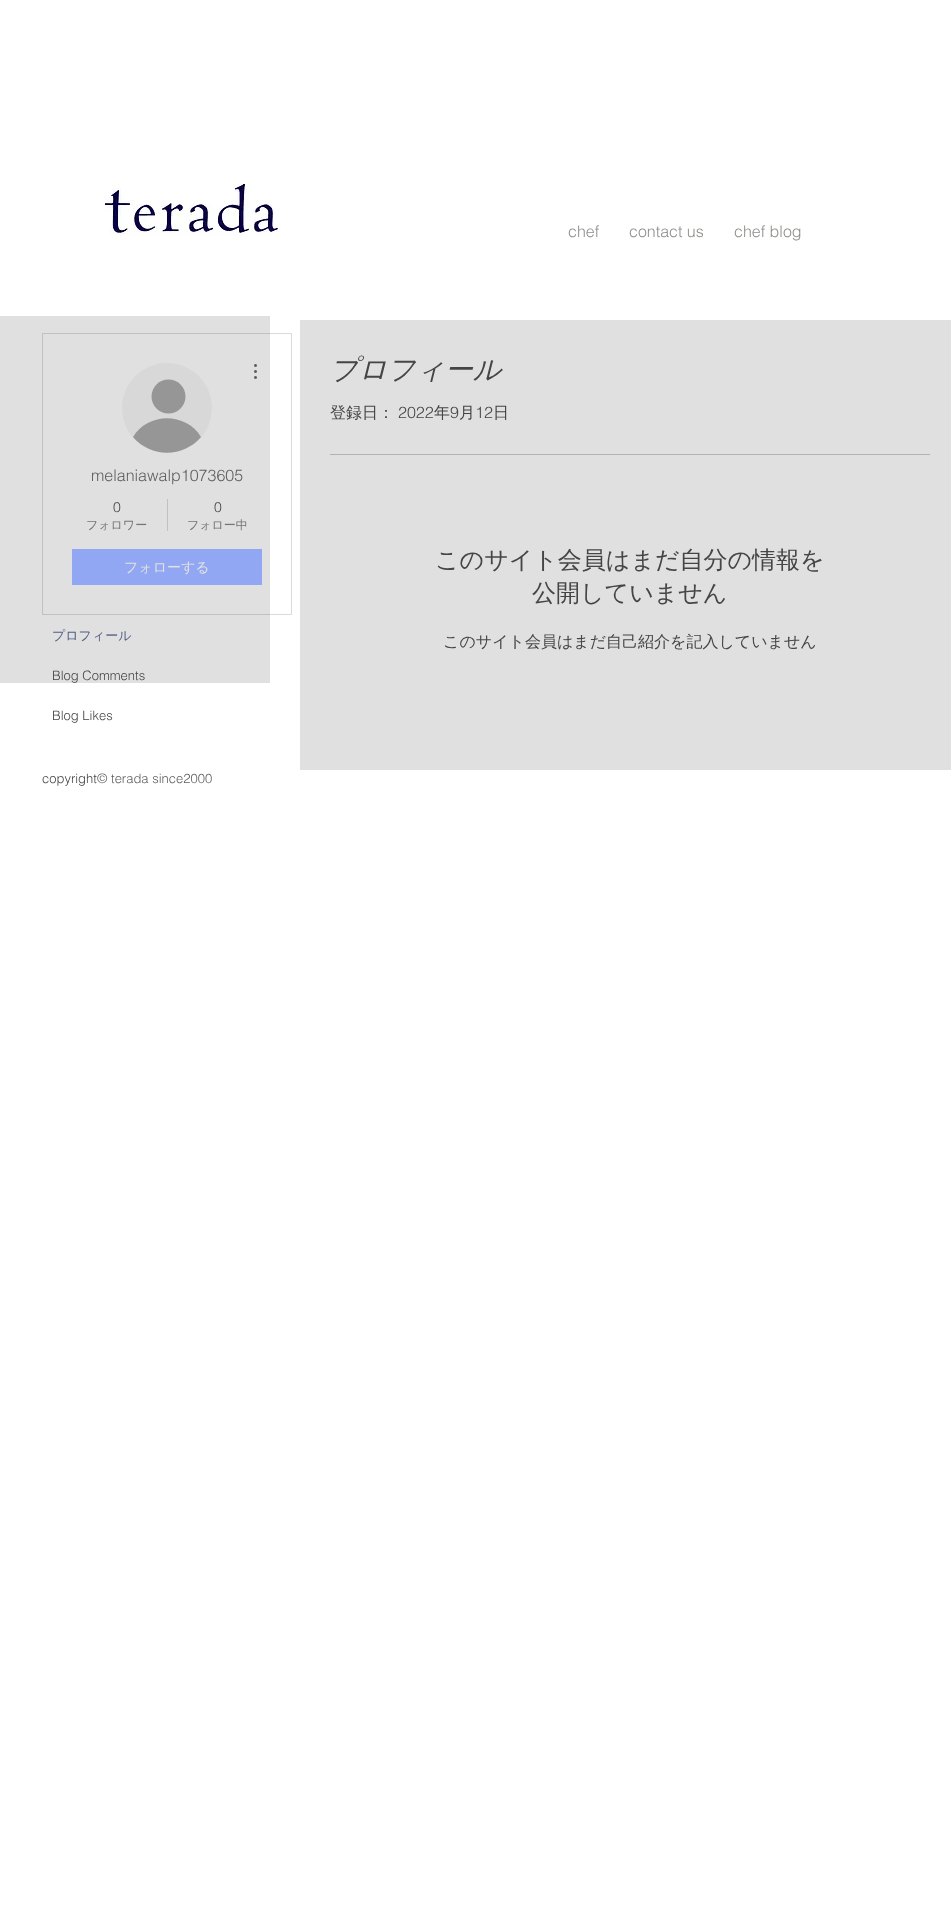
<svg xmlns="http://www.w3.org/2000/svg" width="951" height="1906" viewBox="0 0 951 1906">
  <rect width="100%" height="100%" fill="#fff"/>
  <image x="105" y="183" width="176" height="53" href="img/1.png"/>
  <path d="M0 316h270v367H0z" fill="#e0e0e0"/>
  <path d="M42.5 333.5h249v281H42.5z" fill="none" stroke="#45454533"/>
  <circle cx="167" cy="408" r="45" fill="#d8d8d8"/>
  <circle cx="168.5" cy="396.5" r="17" fill="#969696"/>
  <path d="M201 437C183 458 151 458 133 437C148 412 186 412 201 437Z" fill="#969696"/>
  <image x="254" y="364" width="3" height="15" href="img/2.png"/>
  <path d="M167 499h1v32H167z" fill="#c1c1c1"/>
  <path d="M72 549h190v36H72z" fill="#92a7f3"/>
  <path d="M300 320h651v450H300z" fill="#e0e0e0"/>
  <path d="M330 454h600v1H330z" fill="#b2b2b2"/>
  <g font-family="helvetica" font-size="16" font-weight="300" fill="#8e8e8b">
    <text x="568" y="237">chef</text>
    <text x="629" y="237">contact us</text>
    <text x="734" y="237">chef blog</text>
  </g>
  <text x="91" y="481" font-family="helvetica" font-size="16" font-weight="300" fill="#5f5e5d">melaniawalp1073605</text>
  <text x="113" y="512" font-family="helvetica" font-size="14" font-weight="300" fill="#454545">0</text>
  <text x="86" y="529" font-family="WenQuanYi Zen Hei" font-size="12" font-weight="500" fill="#747474">フォロワー</text>
  <text x="214" y="512" font-family="helvetica" font-size="14" font-weight="300" fill="#454545">0</text>
  <text x="187" y="529" font-family="WenQuanYi Zen Hei" font-size="12" font-weight="500" fill="#747474">フォロー中</text>
  <text x="124" y="572" font-family="WenQuanYi Zen Hei" font-size="14" font-weight="500" fill="#e0e0e0">フォローする</text>
  <text x="52" y="640" font-family="WenQuanYi Zen Hei" font-size="13" font-weight="500" fill="#515d87">プロフィール</text>
  <g font-family="helvetica" font-size="13" font-weight="300" fill="#454545">
    <text x="52" y="680">Blog Comments</text>
    <text x="52" y="720">Blog Likes</text>
  </g>
  <text x="330" y="379" font-family="WenQuanYi Zen Hei" font-size="28" font-weight="500" font-style="italic" fill="#454545">プロフィール</text>
  <text x="330" y="418" font-family="WenQuanYi Zen Hei" font-size="16" font-weight="500" fill="#454545">登録日：</text>
  <text x="398" y="418" font-family="helvetica" font-size="16" font-weight="300" fill="#454545">2022</text>
  <text x="434" y="418" font-family="WenQuanYi Zen Hei" font-size="16" font-weight="500" fill="#454545">年</text>
  <text x="450" y="418" font-family="helvetica" font-size="16" font-weight="300" fill="#454545">9</text>
  <text x="459" y="418" font-family="WenQuanYi Zen Hei" font-size="16" font-weight="500" fill="#454545">月</text>
  <text x="475" y="418" font-family="helvetica" font-size="16" font-weight="300" fill="#454545">12</text>
  <text x="493" y="418" font-family="WenQuanYi Zen Hei" font-size="16" font-weight="500" fill="#454545">日</text>
  <g font-family="WenQuanYi Zen Hei" font-size="24" font-weight="500" fill="#454545">
    <text x="435" y="568">このサイト会員はまだ自分の情報を</text>
    <text x="532" y="601">公開していません</text>
  </g>
  <text x="443" y="647" font-family="WenQuanYi Zen Hei" font-size="16" font-weight="500" fill="#454545">このサイト会員はまだ自己紹介を記入していません</text>
  <text x="42" y="783" font-family="helvetica" font-size="13" font-weight="300" fill="#454545">copyright</text>
  <text x="97" y="783" font-family="helvetica" font-size="13" font-weight="300" fill="#5f5e5d">© terada since2000</text>
</svg>
